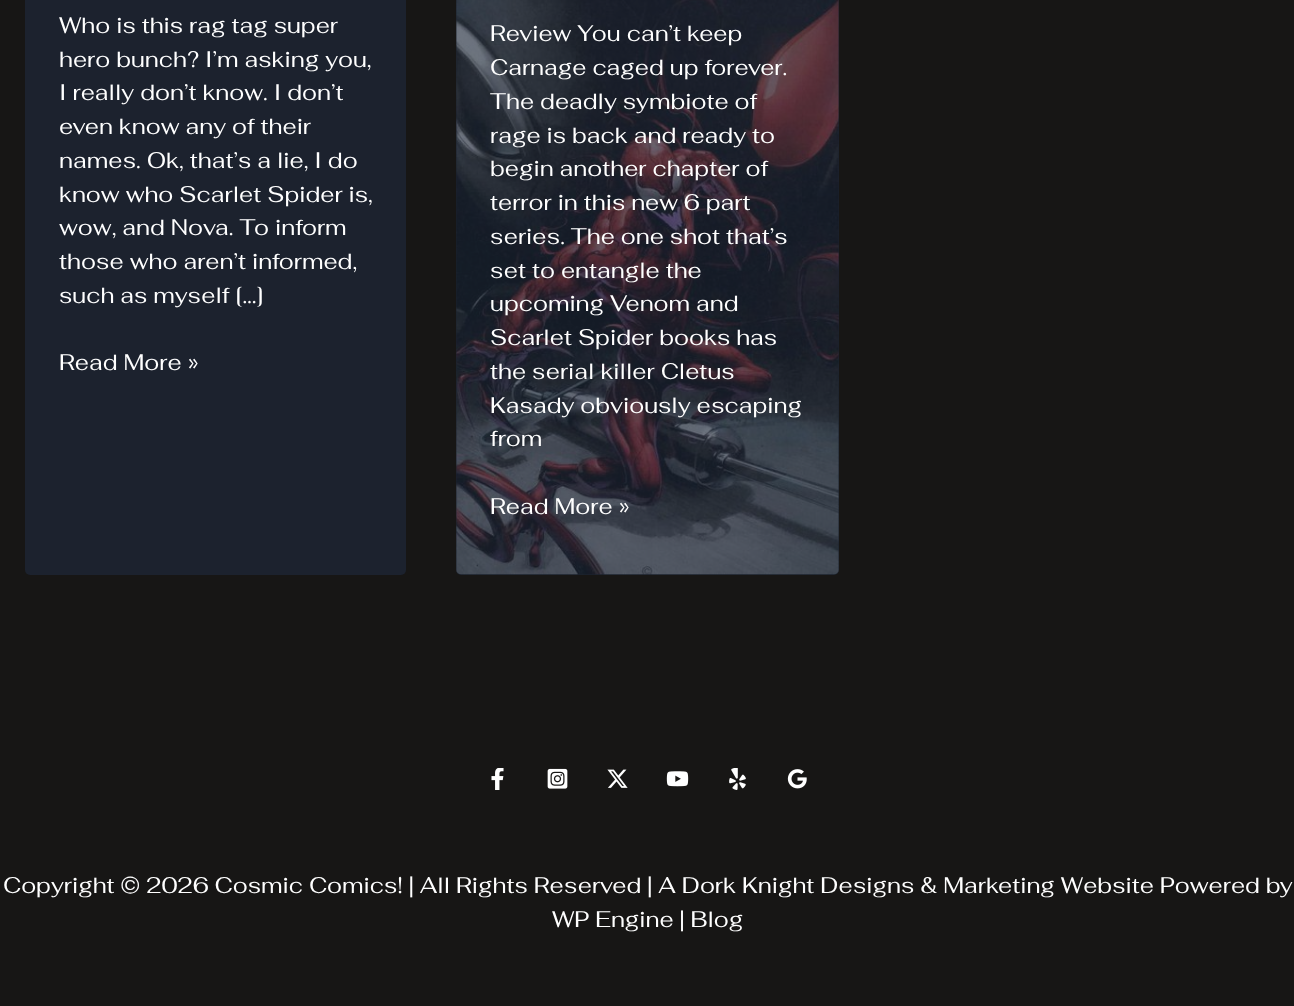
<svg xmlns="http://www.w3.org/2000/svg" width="1294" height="1006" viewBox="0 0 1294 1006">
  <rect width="100%" height="100%" fill="#171615"/>
  <rect x="25" y="-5" width="381" height="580" rx="5" fill="#1c222e"/>
  <image x="456" y="0" width="383" height="575" href="img/1.png"/>
  <rect x="456" y="-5" width="383" height="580" rx="5" fill="#1e293ba6"/>
  <image x="491" y="768" width="13" height="22" href="img/2.png"/>
  <image x="547" y="768" width="21" height="21" href="img/3.png"/>
  <image x="607" y="769" width="21" height="19" href="img/4.png"/>
  <image x="666" y="771" width="23" height="16" href="img/5.png"/>
  <image x="729" y="768" width="17" height="22" href="img/6.png"/>
  <image x="787" y="769" width="20" height="20" href="img/7.png"/>
  <g font-family="Fahkwang" font-size="22.5" fill="#fff">
    <text x="59" y="33">Who is this rag tag super</text>
    <text x="59" y="67">hero bunch? I’m asking you,</text>
    <text x="59" y="100">I really don’t know. I don’t</text>
    <text x="59" y="134">even know any of their</text>
    <text x="59" y="168">names. Ok, that’s a lie, I do</text>
    <text x="59" y="202">know who Scarlet Spider is,</text>
    <text x="59" y="235">wow, and Nova. To inform</text>
    <text x="59" y="269">those who aren’t informed,</text>
    <text x="59" y="303">such as myself […]</text>
    <text x="59" y="370">Read More »</text>
    <text x="490" y="41">Review You can’t keep</text>
    <text x="490" y="75">Carnage caged up forever.</text>
    <text x="490" y="109">The deadly symbiote of</text>
    <text x="490" y="143">rage is back and ready to</text>
    <text x="490" y="176">begin another chapter of</text>
    <text x="490" y="210">terror in this new 6 part</text>
    <text x="490" y="244">series. The one shot that’s</text>
    <text x="490" y="278">set to entangle the</text>
    <text x="490" y="311">upcoming Venom and</text>
    <text x="490" y="345">Scarlet Spider books has</text>
    <text x="490" y="379">the serial killer Cletus</text>
    <text x="490" y="413">Kasady obviously escaping</text>
    <text x="490" y="446">from</text>
    <text x="490" y="514">Read More »</text>
    <text x="3" y="893">Copyright © 2026 Cosmic Comics! | All Rights Reserved | A Dork Knight Designs &amp; Marketing Website Powered by</text>
    <text x="552" y="927">WP Engine | Blog</text>
  </g>
</svg>
